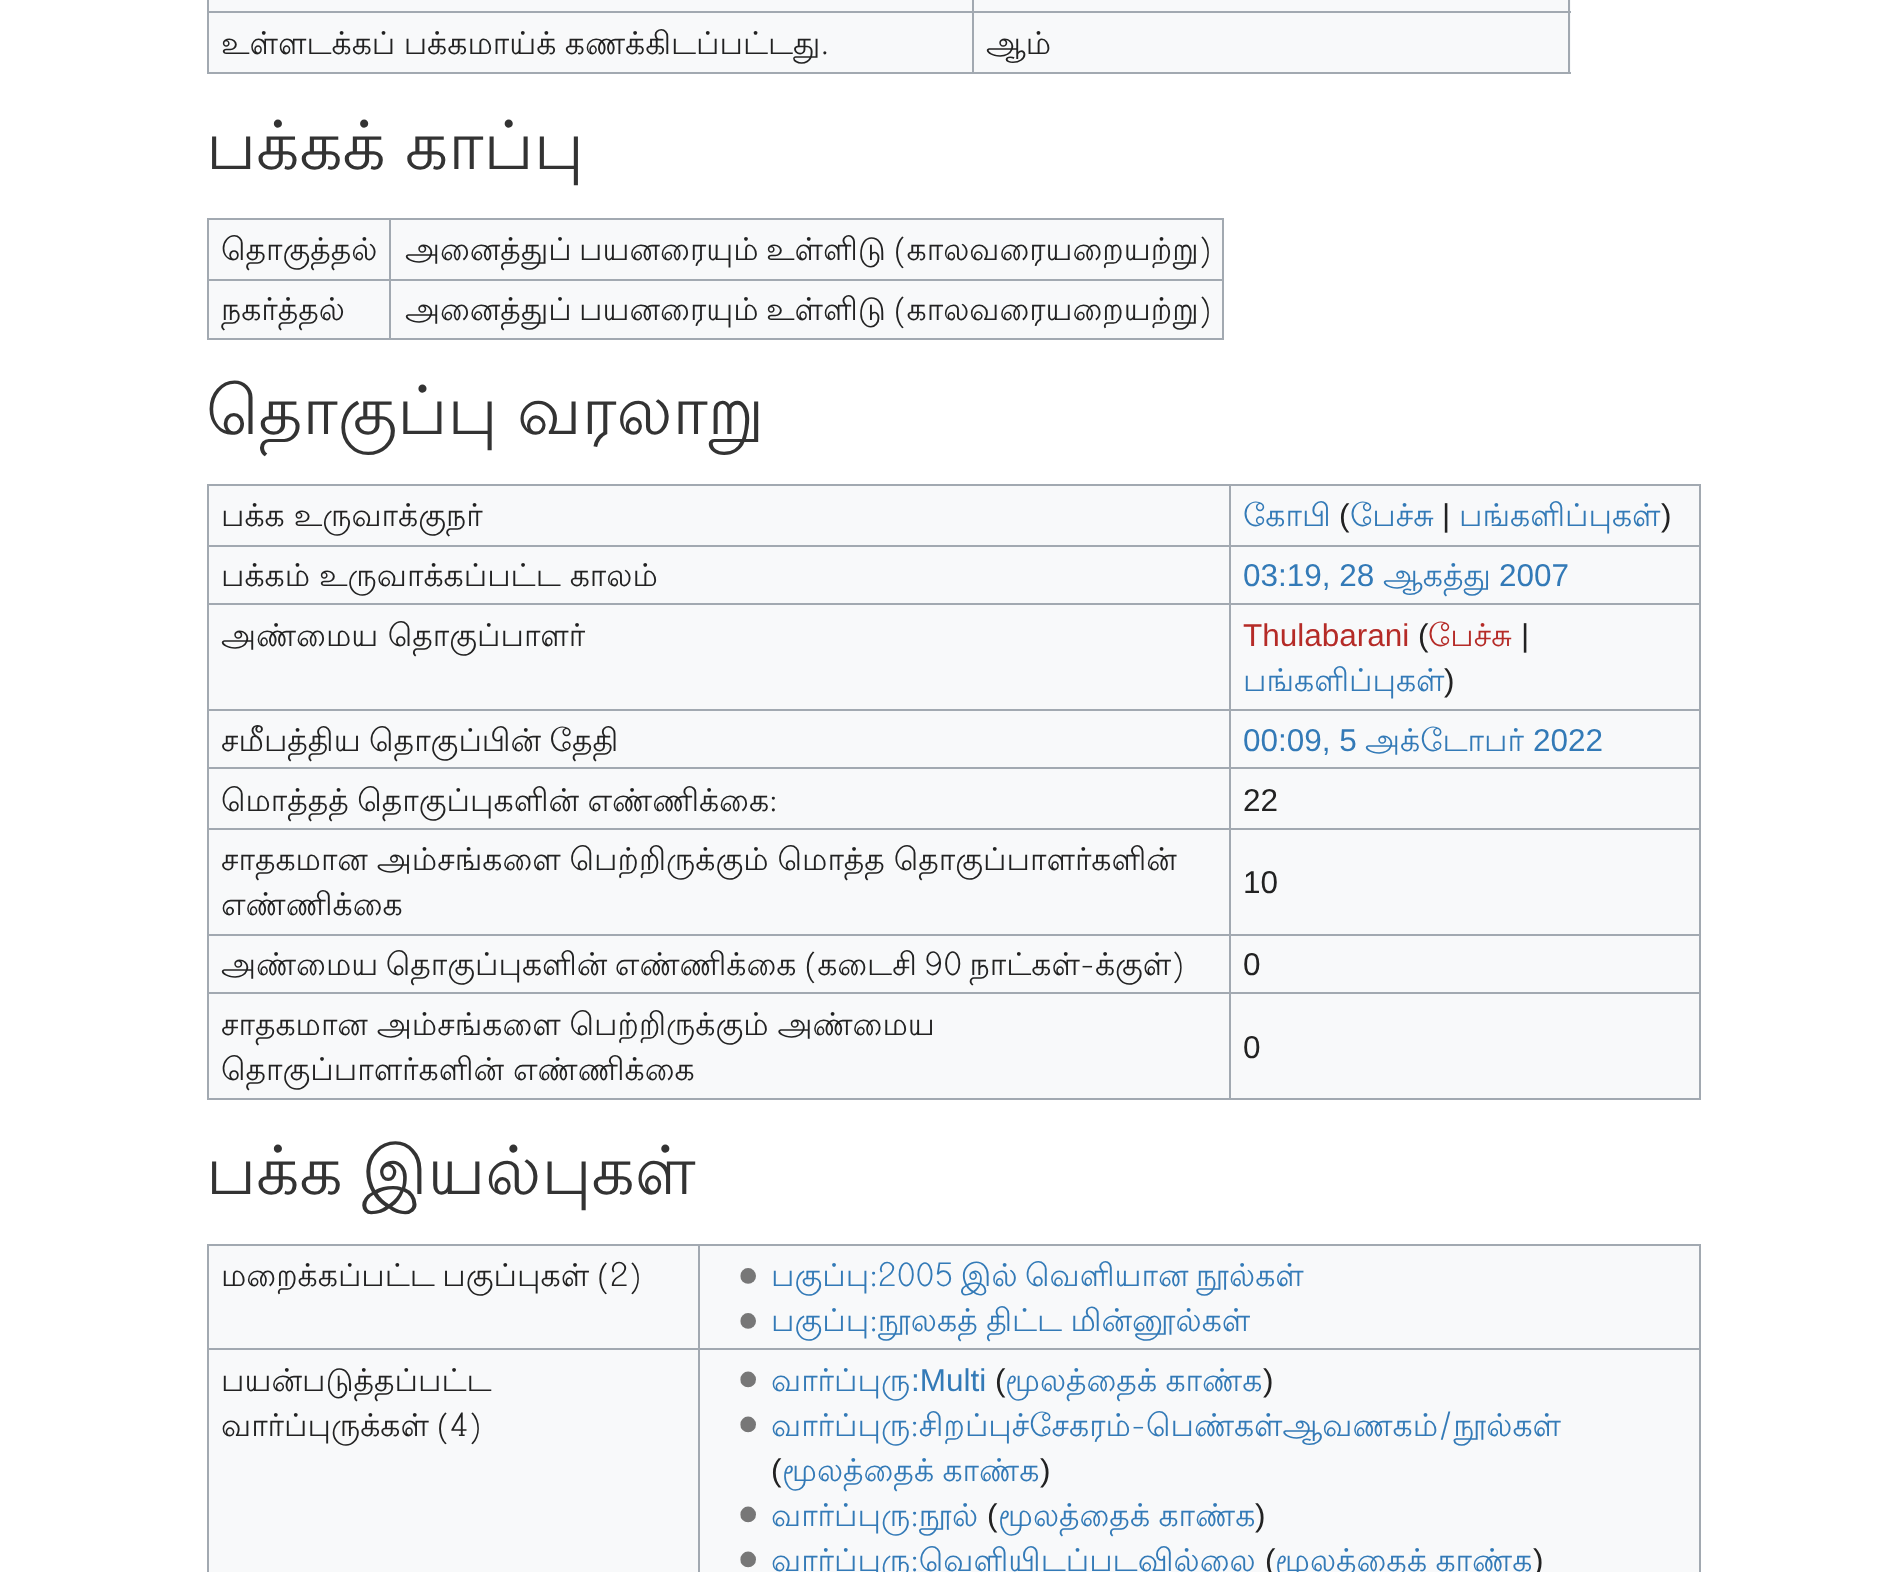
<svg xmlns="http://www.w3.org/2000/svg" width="1904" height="1572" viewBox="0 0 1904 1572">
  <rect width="100%" height="100%" fill="#fff"/>
  <path d="M209 0h1362v72H209z" fill="#f8f9fa"/>
  <path d="M1568 0h2v74H1568z" fill="#a2a9b1"/>
  <path d="M207 72h1364v2H207z" fill="#a2a9b1"/>
  <path d="M207 0h2v74H207z" fill="#a2a9b1"/>
  <path d="M972 11h599v2H972z" fill="#a2a9b1"/>
  <path d="M972 11h2v63H972z" fill="#a2a9b1"/>
  <path d="M207 11h767v2H207z" fill="#a2a9b1"/>
  <path d="M972 0h2v14H972z" fill="#a2a9b1"/>
  <path d="M209 220h1013v118H209z" fill="#f8f9fa"/>
  <path d="M207 218h1017v2H207z" fill="#a2a9b1"/>
  <path d="M1222 218h2v122H1222z" fill="#a2a9b1"/>
  <path d="M207 338h1017v2H207z" fill="#a2a9b1"/>
  <path d="M207 218h2v122H207z" fill="#a2a9b1"/>
  <path d="M389 279h835v2H389z" fill="#a2a9b1"/>
  <path d="M389 279h2v61H389z" fill="#a2a9b1"/>
  <path d="M207 279h185v2H207z" fill="#a2a9b1"/>
  <path d="M389 218h2v63H389z" fill="#a2a9b1"/>
  <path d="M209 486h1490v612H209z" fill="#f8f9fa"/>
  <path d="M207 484h1494v2H207z" fill="#a2a9b1"/>
  <path d="M1699 484h2v616H1699z" fill="#a2a9b1"/>
  <path d="M207 1098h1494v2H207z" fill="#a2a9b1"/>
  <path d="M207 484h2v616H207z" fill="#a2a9b1"/>
  <path d="M1229 545h472v2H1229z" fill="#a2a9b1"/>
  <path d="M1229 603h472v2H1229z" fill="#a2a9b1"/>
  <path d="M1229 709h472v2H1229z" fill="#a2a9b1"/>
  <path d="M1229 767h472v2H1229z" fill="#a2a9b1"/>
  <path d="M1229 828h472v2H1229z" fill="#a2a9b1"/>
  <path d="M1229 934h472v2H1229z" fill="#a2a9b1"/>
  <path d="M1229 992h472v2H1229z" fill="#a2a9b1"/>
  <path d="M1229 992h2v108H1229z" fill="#a2a9b1"/>
  <path d="M207 992h1024v2H207z" fill="#a2a9b1"/>
  <path d="M1229 934h2v61H1229z" fill="#a2a9b1"/>
  <path d="M207 934h1024v2H207z" fill="#a2a9b1"/>
  <path d="M1229 828h2v108H1229z" fill="#a2a9b1"/>
  <path d="M207 828h1024v2H207z" fill="#a2a9b1"/>
  <path d="M1229 767h2v63H1229z" fill="#a2a9b1"/>
  <path d="M207 767h1024v2H207z" fill="#a2a9b1"/>
  <path d="M1229 709h2v61H1229z" fill="#a2a9b1"/>
  <path d="M207 709h1024v2H207z" fill="#a2a9b1"/>
  <path d="M1229 603h2v108H1229z" fill="#a2a9b1"/>
  <path d="M207 603h1024v2H207z" fill="#a2a9b1"/>
  <path d="M1229 545h2v60H1229z" fill="#a2a9b1"/>
  <path d="M207 545h1024v2H207z" fill="#a2a9b1"/>
  <path d="M1229 484h2v63H1229z" fill="#a2a9b1"/>
  <path d="M209 1246h1490v326H209z" fill="#f8f9fa"/>
  <path d="M207 1244h1494v2H207z" fill="#a2a9b1"/>
  <path d="M1699 1244h2v328H1699z" fill="#a2a9b1"/>
  <path d="M207 1244h2v328H207z" fill="#a2a9b1"/>
  <path d="M698 1348h1003v2H698z" fill="#a2a9b1"/>
  <path d="M698 1348h2v224H698z" fill="#a2a9b1"/>
  <path d="M207 1348h493v2H207z" fill="#a2a9b1"/>
  <path d="M698 1244h2v106H698z" fill="#a2a9b1"/>
  <image x="740" y="1268" width="16" height="16" href="img/1.png"/>
  <image x="740" y="1313" width="16" height="16" href="img/1.png"/>
  <image x="740" y="1371" width="16" height="17" href="img/2.png"/>
  <image x="740" y="1416" width="16" height="17" href="img/2.png"/>
  <image x="740" y="1506" width="16" height="17" href="img/2.png"/>
  <image x="740" y="1551" width="16" height="17" href="img/2.png"/>
  <g font-family="Lohit Tamil" font-size="31.5" fill="#222">
    <text x="221" y="54" word-spacing="-1">உள்ளடக்கப் பக்கமாய்க் கணக்கிடப்பட்டது.</text>
    <text x="986" y="54">ஆம்</text>
  </g>
  <text x="206" y="169" word-spacing="-1" font-family="Lohit Tamil" font-size="67.5" fill="#333">பக்கக் காப்பு</text>
  <g font-family="Lohit Tamil" font-size="31.5" fill="#222">
    <text x="221" y="260">தொகுத்தல்</text>
    <text x="405" y="260" word-spacing="-2">அனைத்துப் பயனரையும் உள்ளிடு (காலவரையறையற்று)</text>
    <text x="221" y="320">நகர்த்தல்</text>
    <text x="405" y="320" word-spacing="-2">அனைத்துப் பயனரையும் உள்ளிடு (காலவரையறையற்று)</text>
  </g>
  <text x="206" y="434" word-spacing="-1" font-family="Lohit Tamil" font-size="67.5" fill="#333">தொகுப்பு வரலாறு</text>
  <text x="221" y="526" word-spacing="-0.5" font-family="Lohit Tamil" font-size="31.5" fill="#222">பக்க உருவாக்குநர்</text>
  <text x="1243" y="526" font-family="Lohit Tamil" font-size="31.5" fill="#337ab7">கோபி</text>
  <text x="1339" y="526" font-family="Liberation Sans" font-size="31.5" fill="#222">(</text>
  <text x="1350" y="526" font-family="Lohit Tamil" font-size="31.5" fill="#337ab7">பேச்சு</text>
  <text x="1442" y="526" font-family="Liberation Sans" font-size="31.5" fill="#222">|</text>
  <text x="1459" y="526" font-family="Lohit Tamil" font-size="31.5" fill="#337ab7">பங்களிப்புகள்</text>
  <text x="1661" y="526" font-family="Liberation Sans" font-size="31.5" fill="#222">)</text>
  <text x="221" y="586" word-spacing="-0.5" font-family="Lohit Tamil" font-size="31.5" fill="#222">பக்கம் உருவாக்கப்பட்ட காலம்</text>
  <text x="1243" y="586" font-family="Liberation Sans" font-size="31.5" fill="#337ab7">03:19, 28</text>
  <text x="1383" y="586" font-family="Lohit Tamil" font-size="31.5" fill="#337ab7">ஆகத்து</text>
  <text x="1499" y="586" font-family="Liberation Sans" font-size="31.5" fill="#337ab7">2007</text>
  <text x="221" y="646" font-family="Lohit Tamil" font-size="31.5" fill="#222">அண்மைய தொகுப்பாளர்</text>
  <text x="1243" y="646" font-family="Liberation Sans" font-size="31.5" fill="#b52b27">Thulabarani</text>
  <text x="1418" y="646" font-family="Liberation Sans" font-size="31.5" fill="#222">(</text>
  <text x="1428" y="646" font-family="Lohit Tamil" font-size="31.5" fill="#b52b27">பேச்சு</text>
  <text x="1521" y="646" font-family="Liberation Sans" font-size="31.5" fill="#222">|</text>
  <text x="1243" y="691" font-family="Lohit Tamil" font-size="31.5" fill="#337ab7">பங்களிப்புகள்</text>
  <text x="1444" y="691" font-family="Liberation Sans" font-size="31.5" fill="#222">)</text>
  <text x="221" y="751" word-spacing="-1" font-family="Lohit Tamil" font-size="31.5" fill="#222">சமீபத்திய தொகுப்பின் தேதி</text>
  <text x="1243" y="751" font-family="Liberation Sans" font-size="31.5" fill="#337ab7">00:09, 5</text>
  <text x="1365" y="751" font-family="Lohit Tamil" font-size="31.5" fill="#337ab7">அக்டோபர்</text>
  <text x="1533" y="751" font-family="Liberation Sans" font-size="31.5" fill="#337ab7">2022</text>
  <text x="221" y="811" word-spacing="-1" font-family="Lohit Tamil" font-size="31.5" fill="#222">மொத்தத் தொகுப்புகளின் எண்ணிக்கை:</text>
  <text x="1243" y="811" font-family="Liberation Sans" font-size="31.5" fill="#222">22</text>
  <g font-family="Lohit Tamil" font-size="31.5" fill="#222">
    <text x="221" y="870" word-spacing="-0.5">சாதகமான அம்சங்களை பெற்றிருக்கும் மொத்த தொகுப்பாளர்களின்</text>
    <text x="221" y="915">எண்ணிக்கை</text>
  </g>
  <text x="1243" y="893" font-family="Liberation Sans" font-size="31.5" fill="#222">10</text>
  <text x="221" y="975" word-spacing="-2" font-family="Lohit Tamil" font-size="31.5" fill="#222">அண்மைய தொகுப்புகளின் எண்ணிக்கை (கடைசி 90 நாட்கள்-க்குள்)</text>
  <text x="1243" y="975" font-family="Liberation Sans" font-size="31.5" fill="#222">0</text>
  <g font-family="Lohit Tamil" font-size="31.5" fill="#222">
    <text x="221" y="1035" word-spacing="-0.5">சாதகமான அம்சங்களை பெற்றிருக்கும் அண்மைய</text>
    <text x="221" y="1080" word-spacing="-0.5">தொகுப்பாளர்களின் எண்ணிக்கை</text>
  </g>
  <text x="1243" y="1058" font-family="Liberation Sans" font-size="31.5" fill="#222">0</text>
  <text x="206" y="1194" word-spacing="-1" font-family="Lohit Tamil" font-size="67.5" fill="#333">பக்க இயல்புகள்</text>
  <text x="221" y="1286" word-spacing="-2" font-family="Lohit Tamil" font-size="31.5" fill="#222">மறைக்கப்பட்ட பகுப்புகள் (2)</text>
  <g font-family="Lohit Tamil" font-size="31.5" fill="#337ab7">
    <text x="771" y="1286" word-spacing="-2">பகுப்பு:2005 இல் வெளியான நூல்கள்</text>
    <text x="771" y="1331" word-spacing="-1">பகுப்பு:நூலகத் திட்ட மின்னூல்கள்</text>
  </g>
  <g font-family="Lohit Tamil" font-size="31.5" fill="#222">
    <text x="221" y="1391">பயன்படுத்தப்பட்ட</text>
    <text x="221" y="1436" word-spacing="-2">வார்ப்புருக்கள் (4)</text>
  </g>
  <text x="771" y="1391" font-family="Lohit Tamil" font-size="31.5" fill="#337ab7">வார்ப்புரு</text>
  <text x="911" y="1391" font-family="Liberation Sans" font-size="31.5" fill="#337ab7">:Multi</text>
  <text x="995" y="1391" font-family="Liberation Sans" font-size="31.5" fill="#222">(</text>
  <text x="1005" y="1391" word-spacing="-1" font-family="Lohit Tamil" font-size="31.5" fill="#337ab7">மூலத்தைக் காண்க</text>
  <text x="1263" y="1391" font-family="Liberation Sans" font-size="31.5" fill="#222">)</text>
  <text x="771" y="1436" font-family="Lohit Tamil" font-size="31.5" fill="#337ab7">வார்ப்புரு:சிறப்புச்சேகரம்-பெண்கள்ஆவணகம்/நூல்கள்</text>
  <text x="771" y="1481" font-family="Liberation Sans" font-size="31.5" fill="#222">(</text>
  <text x="782" y="1481" word-spacing="-1" font-family="Lohit Tamil" font-size="31.5" fill="#337ab7">மூலத்தைக் காண்க</text>
  <text x="1040" y="1481" font-family="Liberation Sans" font-size="31.5" fill="#222">)</text>
  <text x="771" y="1526" font-family="Lohit Tamil" font-size="31.5" fill="#337ab7">வார்ப்புரு:நூல்</text>
  <text x="987" y="1526" font-family="Liberation Sans" font-size="31.5" fill="#222">(</text>
  <text x="998" y="1526" word-spacing="-1" font-family="Lohit Tamil" font-size="31.5" fill="#337ab7">மூலத்தைக் காண்க</text>
  <text x="1255" y="1526" font-family="Liberation Sans" font-size="31.5" fill="#222">)</text>
  <text x="771" y="1571" font-family="Lohit Tamil" font-size="31.5" fill="#337ab7">வார்ப்புரு:வெளியிடப்படவில்லை</text>
  <text x="1265" y="1571" font-family="Liberation Sans" font-size="31.5" fill="#222">(</text>
  <text x="1275" y="1571" word-spacing="-1" font-family="Lohit Tamil" font-size="31.5" fill="#337ab7">மூலத்தைக் காண்க</text>
  <text x="1533" y="1571" font-family="Liberation Sans" font-size="31.5" fill="#222">)</text>
</svg>
